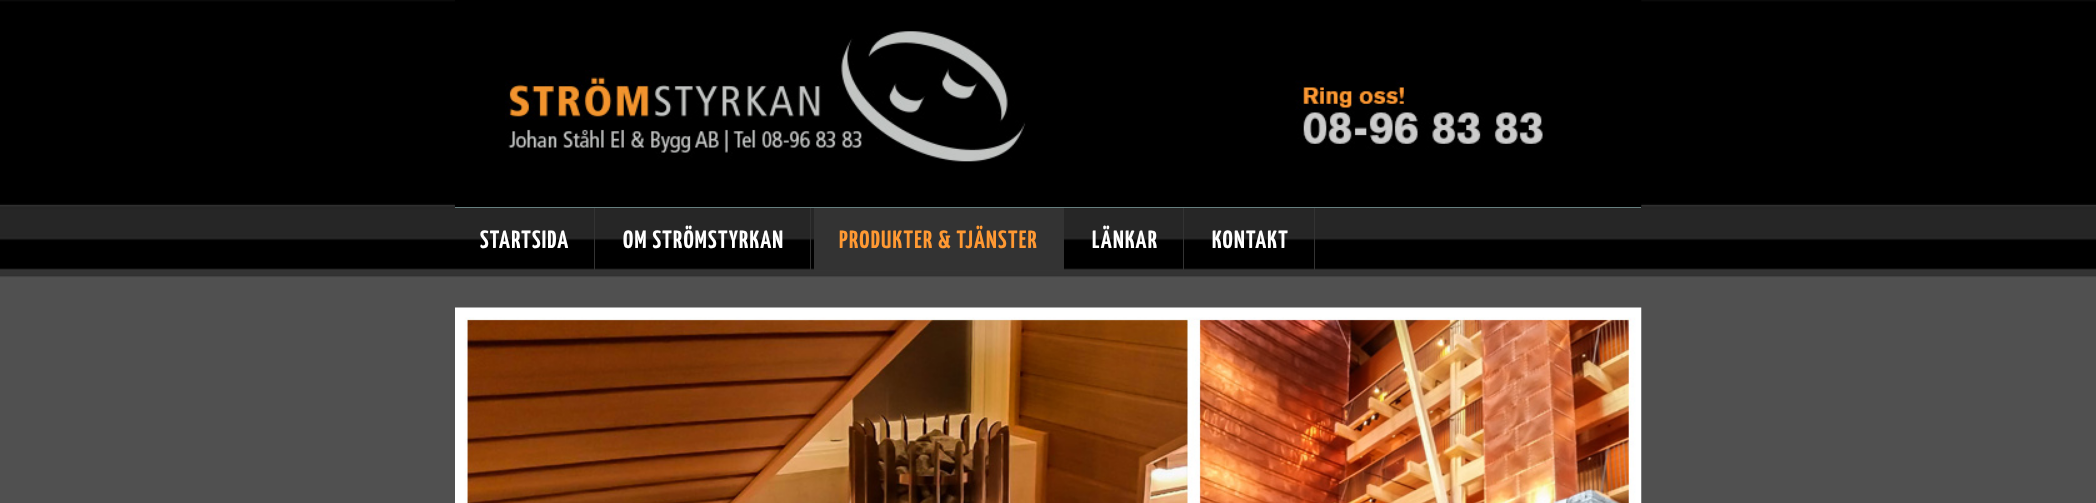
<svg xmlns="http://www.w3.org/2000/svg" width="2096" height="503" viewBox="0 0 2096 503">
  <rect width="100%" height="100%" fill="#fff"/>
  <image x="0" y="0" width="2096" height="503" href="img/1.png"/>
  <path d="M455 207h1186v1H455z" fill="#cff"/>
  <image x="455" y="0" width="1187" height="208" href="img/2.png"/>
  <path d="M594 208h1v67H594z" fill="#333"/>
  <path d="M810 208h1v67H810z" fill="#333"/>
  <path d="M814 208h250v62H814z" fill="#333"/>
  <path d="M1183 208h1v67H1183z" fill="#333"/>
  <path d="M1314 208h1v67H1314z" fill="#333"/>
  <image x="455" y="307" width="1187" height="196" href="img/3.png"/>
  <g font-family="Yanone Kaffeesatz" font-size="25" font-weight="bold" letter-spacing="1.25" fill="#fff">
    <text x="480" y="248">STARTSIDA</text>
    <text x="623" y="248">OM STRÖMSTYRKAN</text>
  </g>
  <text x="839" y="248" font-family="Yanone Kaffeesatz" font-size="25" font-weight="bold" letter-spacing="1.25" fill="#f93">PRODUKTER &amp; TJÄNSTER</text>
  <g font-family="Yanone Kaffeesatz" font-size="25" font-weight="bold" letter-spacing="1.25" fill="#fff">
    <text x="1092" y="248">LÄNKAR</text>
    <text x="1212" y="248">KONTAKT</text>
  </g>
</svg>
